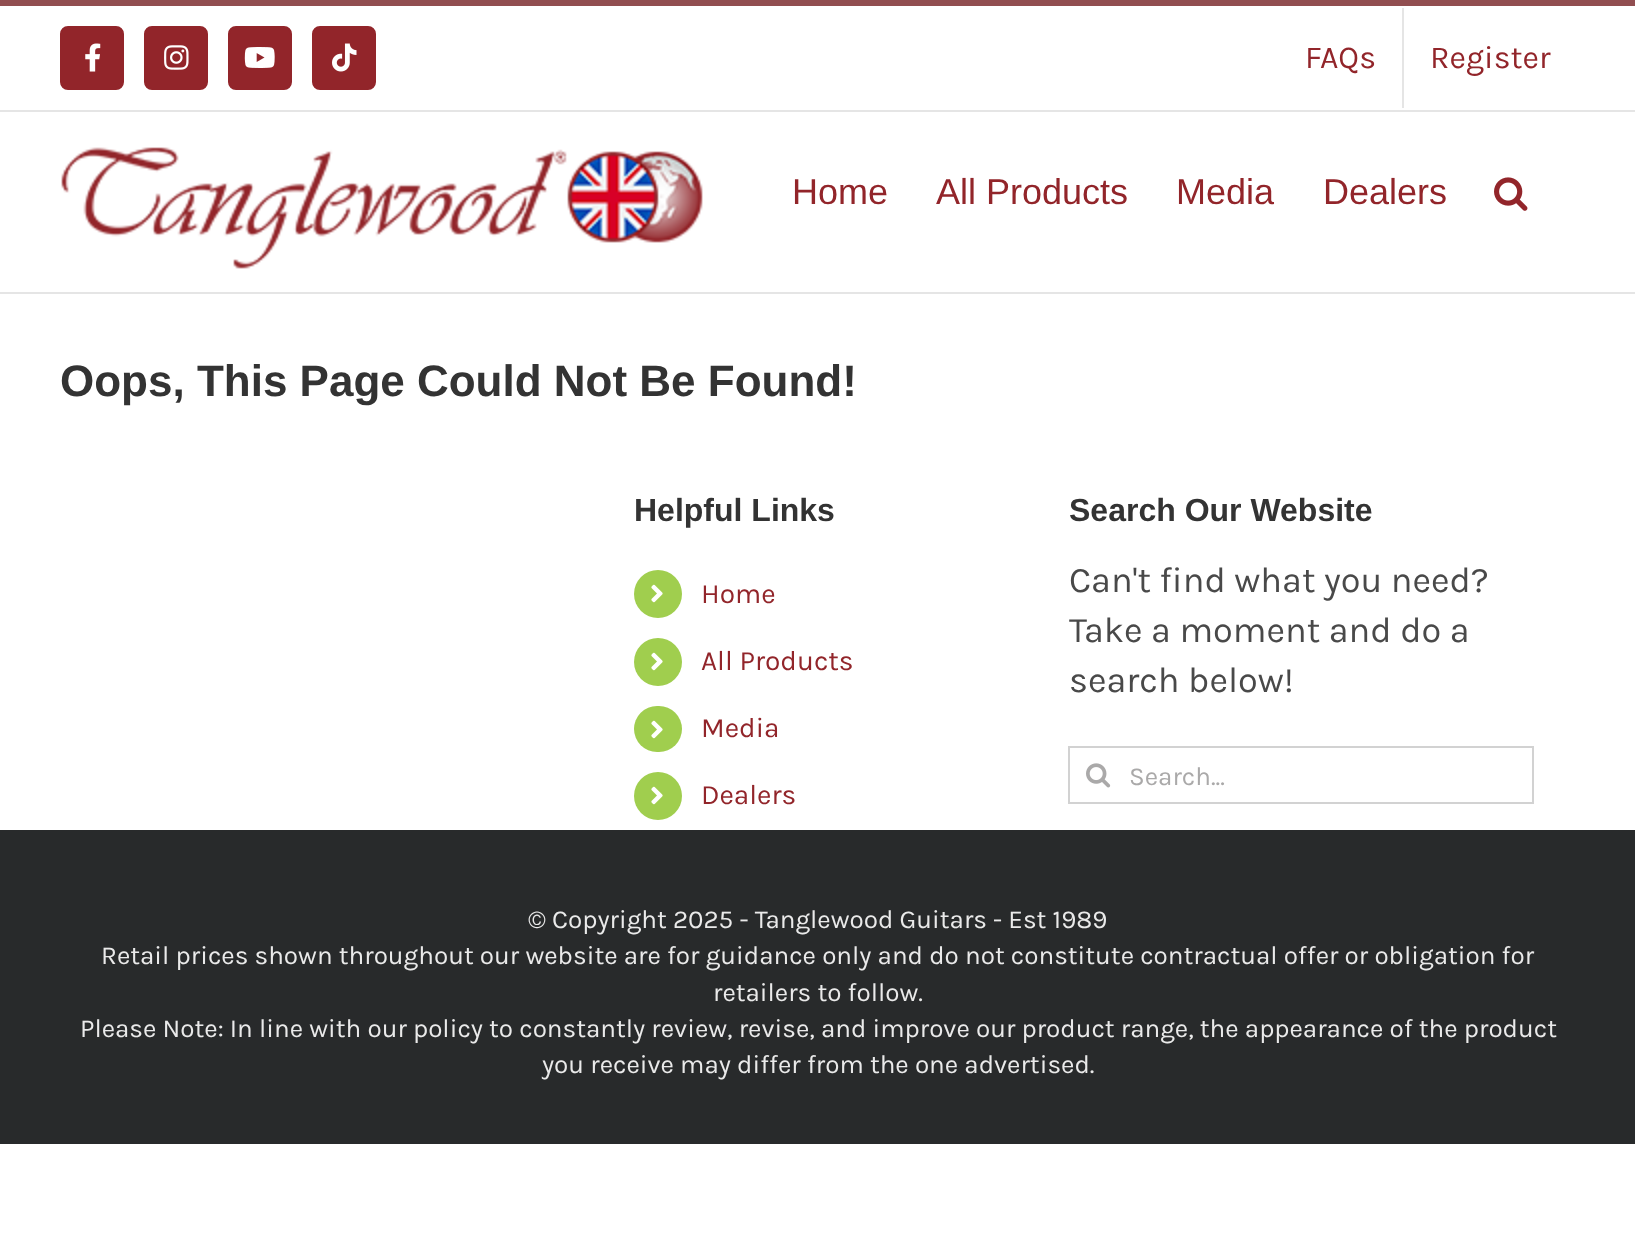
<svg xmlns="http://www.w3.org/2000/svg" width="1635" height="1260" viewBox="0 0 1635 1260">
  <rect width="100%" height="100%" fill="#fff"/>
  <path d="M0 0h1635v6H0z" fill="#914e50"/>
  <path d="M0 110h1635v2H0z" fill="#e5e5e5"/>
  <rect x="61" y="27" width="62" height="62" rx="7" fill="#92252a" stroke="#92252a" stroke-width="2"/>
  <image x="85" y="43" width="16" height="29" href="img/1.png"/>
  <rect x="145" y="27" width="62" height="62" rx="7" fill="#92252a" stroke="#92252a" stroke-width="2"/>
  <image x="164" y="45" width="25" height="25" href="img/2.png"/>
  <rect x="229" y="27" width="62" height="62" rx="7" fill="#92252a" stroke="#92252a" stroke-width="2"/>
  <image x="244" y="47" width="31" height="21" href="img/3.png"/>
  <rect x="313" y="27" width="62" height="62" rx="7" fill="#92252a" stroke="#92252a" stroke-width="2"/>
  <image x="332" y="43" width="25" height="29" href="img/4.png"/>
  <path d="M1402 8h2v100H1402z" fill="#e5e5e5"/>
  <path d="M0 292h1635v2H0z" fill="#e5e5e5"/>
  <image x="61" y="147" width="642" height="122" href="img/5.png"/>
  <image x="1494" y="177" width="34" height="34" href="img/6.png"/>
  <circle cx="658" cy="594" r="24" fill="#a0ce4e"/>
  <image x="651" y="584" width="12" height="19" href="img/7.png"/>
  <circle cx="658" cy="662" r="24" fill="#a0ce4e"/>
  <image x="651" y="652" width="12" height="19" href="img/7.png"/>
  <rect x="634" y="706" width="48" height="46" rx="23" fill="#a0ce4e"/>
  <image x="651" y="720" width="12" height="19" href="img/7.png"/>
  <circle cx="658" cy="796" r="24" fill="#a0ce4e"/>
  <image x="651" y="786" width="12" height="19" href="img/7.png"/>
  <path d="M1069 747h464v56H1069z" fill="none" stroke="#d2d2d2" stroke-width="2"/>
  <image x="1086" y="763" width="25" height="25" href="img/8.png"/>
  <path d="M0 830h1635v314H0z" fill="#282a2b"/>
  <g font-family="Karla" font-size="32" fill="#92252a">
    <text x="1305" y="68">FAQs</text>
    <text x="1430" y="68">Register</text>
  </g>
  <g font-family="Liberation Sans" font-size="36" fill="#92252a">
    <text x="792" y="204">Home</text>
    <text x="936" y="204">All Products</text>
    <text x="1176" y="204">Media</text>
    <text x="1323" y="204">Dealers</text>
  </g>
  <text x="60" y="396" font-family="Liberation Sans" font-size="44" font-weight="bold" fill="#333">Oops, This Page Could Not Be Found!</text>
  <text x="634" y="521" font-family="Liberation Sans" font-size="32" font-weight="bold" fill="#333">Helpful Links</text>
  <g font-family="Karla" font-size="28" fill="#92252a">
    <text x="701" y="603">Home</text>
    <text x="701" y="670">All Products</text>
    <text x="701" y="737">Media</text>
    <text x="701" y="804">Dealers</text>
  </g>
  <text x="1069" y="521" font-family="Liberation Sans" font-size="32" font-weight="bold" fill="#333">Search Our Website</text>
  <g font-family="Karla" font-size="36" fill="#494949">
    <text x="1069" y="592">Can't find what you need?</text>
    <text x="1069" y="642">Take a moment and do a</text>
    <text x="1069" y="692">search below!</text>
  </g>
  <text x="1129" y="785" font-family="Karla" font-size="26" fill="#aaa9a9">Search...</text>
  <g font-family="Karla" font-size="26" fill="#eaeaea">
    <text x="528" y="928">© Copyright 2025 - Tanglewood Guitars - Est 1989</text>
    <text x="101" y="964">Retail prices shown throughout our website are for guidance only and do not constitute contractual offer or obligation for</text>
    <text x="713" y="1001">retailers to follow.</text>
    <text x="80" y="1037">Please Note: In line with our policy to constantly review, revise, and improve our product range, the appearance of the product</text>
    <text x="542" y="1073">you receive may differ from the one advertised.</text>
  </g>
</svg>
